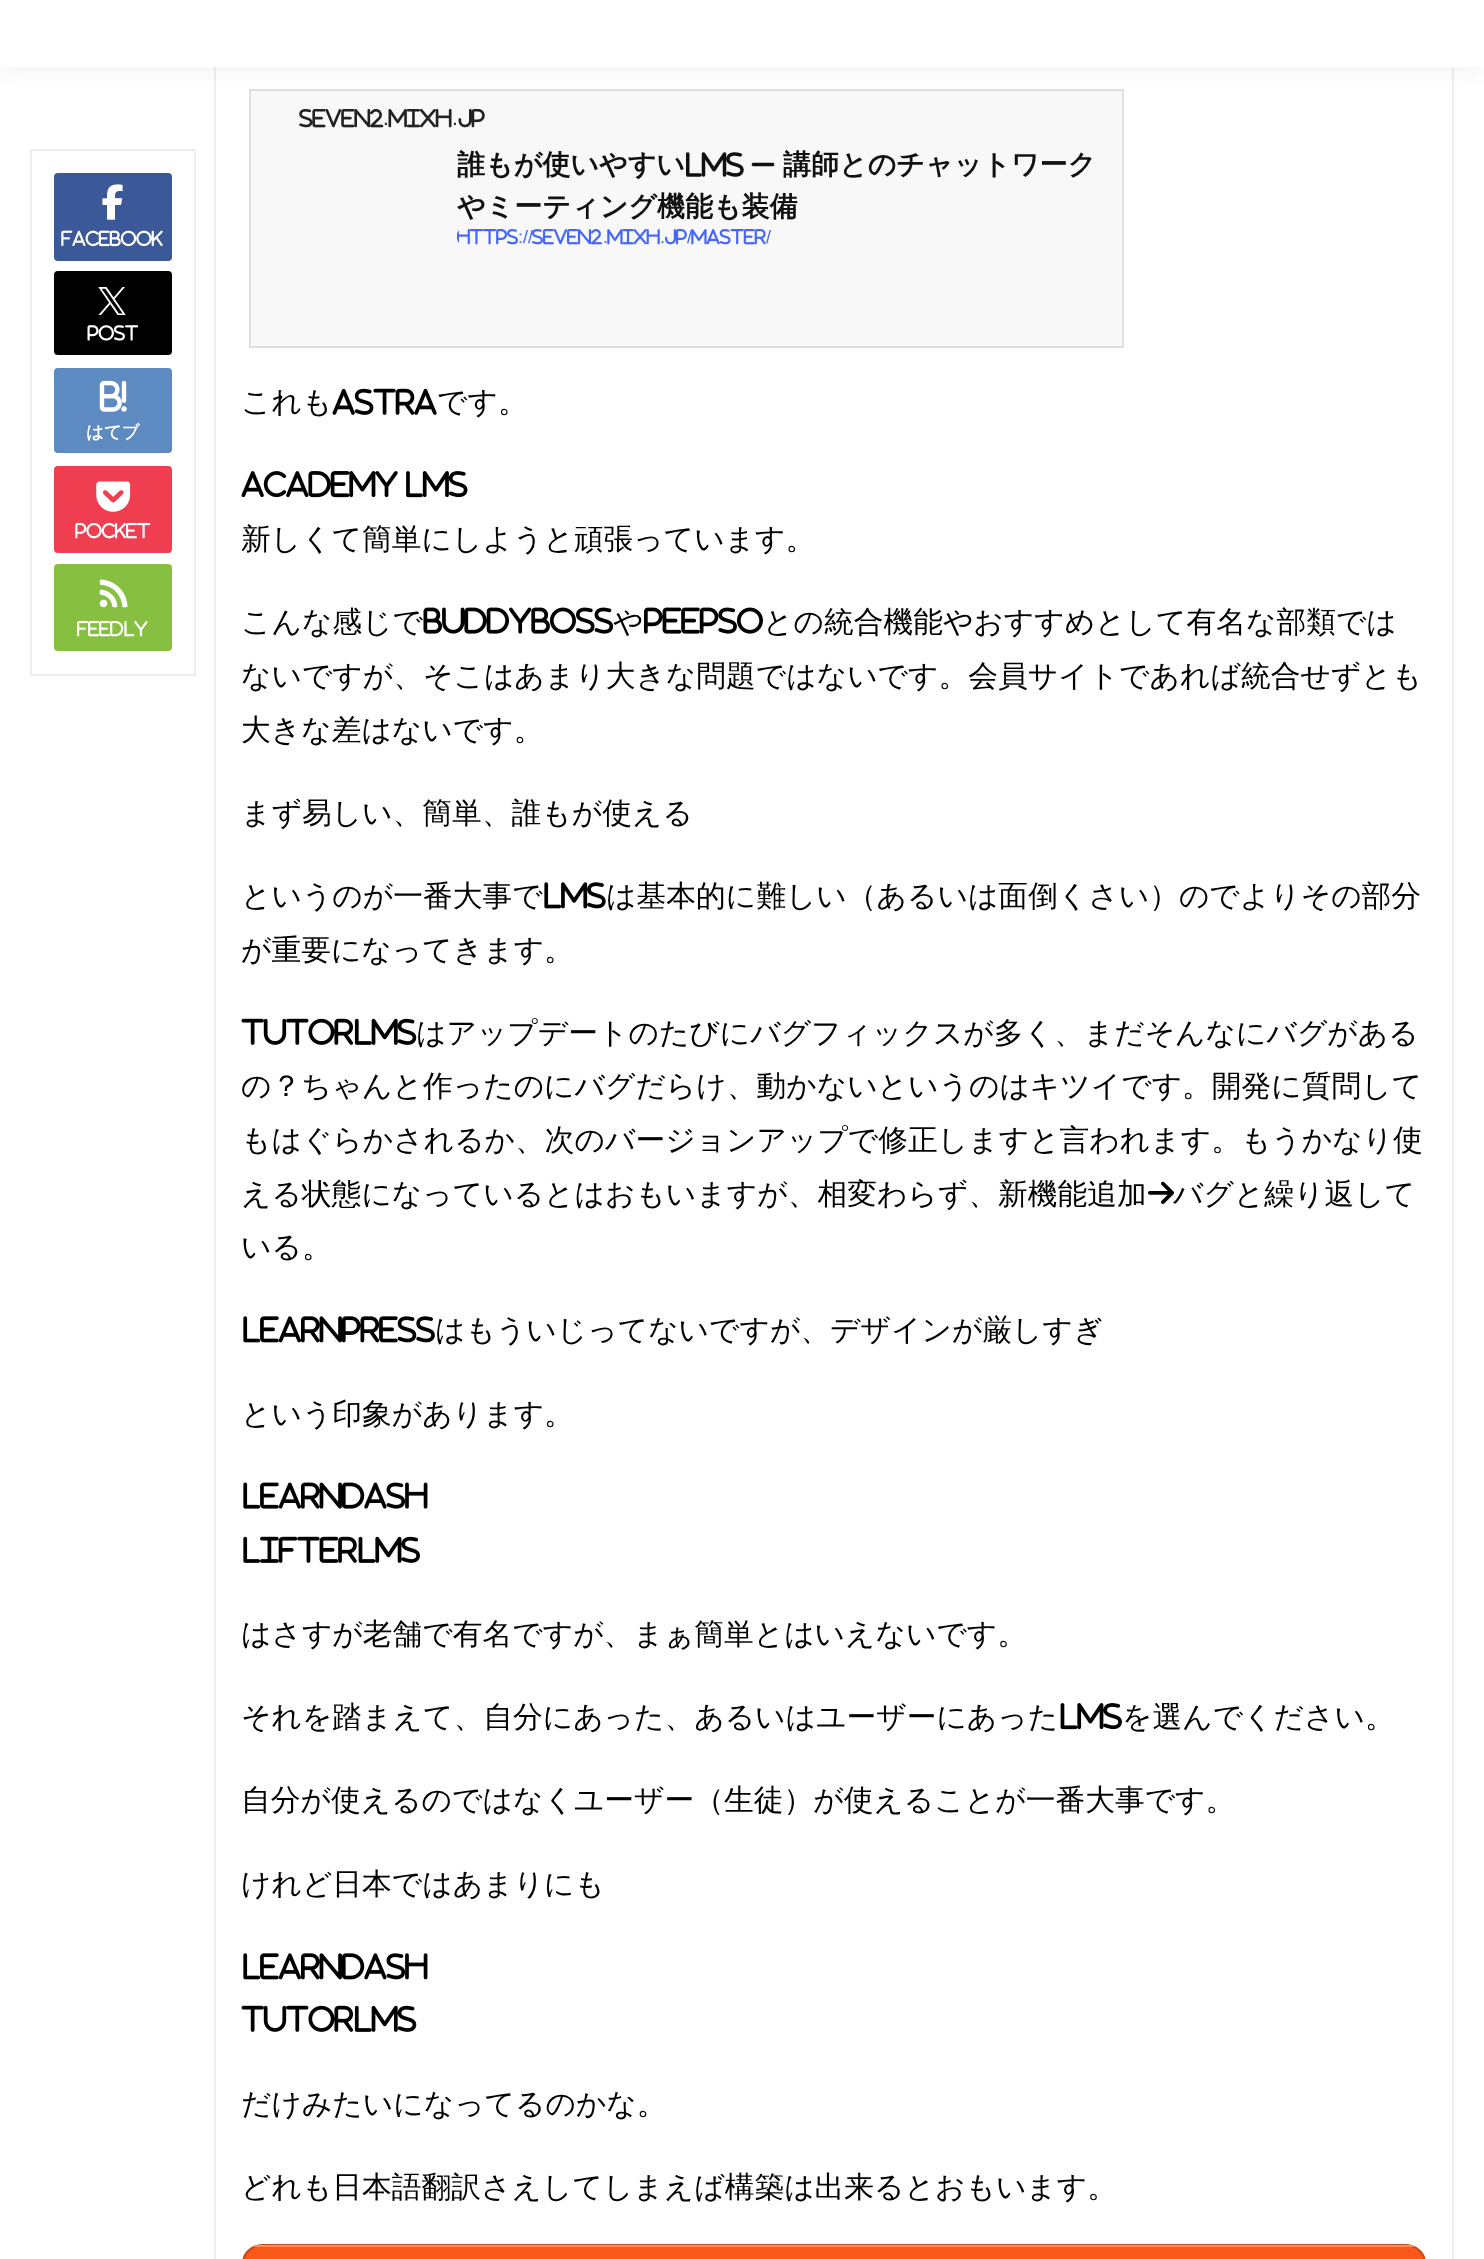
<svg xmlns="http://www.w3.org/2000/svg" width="1484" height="2259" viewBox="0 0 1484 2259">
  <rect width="100%" height="100%" fill="#fff"/>
  <path d="M215 -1h1238v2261H215z" fill="none" stroke="#eee" stroke-width="2"/>
  <path d="M250 90h873v257H250z" fill="#f8f8f8" stroke="#dfdfdf" stroke-width="2"/>
  <path d="M0 5h1484v67H0z" fill="#c8c8c833" filter="blur(9px)"/>
  <path d="M0 0h1484v67H0z" fill="#fff"/>
  <path d="M31 150h164v525H31z" fill="none" stroke="#eee" stroke-width="2"/>
  <rect x="54" y="173" width="118" height="88" rx="4" fill="#3b5998"/>
  <image x="102" y="184" width="21" height="36" href="img/1.png"/>
  <image x="61" y="230" width="102" height="17" href="img/2.png"/>
  <rect x="54" y="271" width="118" height="84" rx="4" fill="#000"/>
  <image x="98" y="287" width="28" height="28" href="img/3.png"/>
  <image x="87" y="325" width="52" height="16" href="img/4.png"/>
  <rect x="54" y="368" width="118" height="85" rx="4" fill="#5d8ac1"/>
  <image x="99" y="380" width="28" height="32" href="img/5.png"/>
  <rect x="54" y="466" width="118" height="87" rx="4" fill="#f03e51"/>
  <image x="96" y="481" width="35" height="31" href="img/6.png"/>
  <image x="75" y="522" width="76" height="17" href="img/7.png"/>
  <rect x="54" y="564" width="118" height="87" rx="4" fill="#87c040"/>
  <image x="99" y="579" width="29" height="29" href="img/8.png"/>
  <image x="77" y="620" width="71" height="17" href="img/9.png"/>
  <image x="299" y="109" width="85" height="19" href="img/10.png"/>
  <image x="388" y="109" width="64" height="19" href="img/11.png"/>
  <image x="458" y="109" width="27" height="19" href="img/12.png"/>
  <image x="686" y="152" width="58" height="25" href="img/13.png"/>
  <image x="751" y="162" width="24" height="5" href="img/14.png"/>
  <image x="457" y="229" width="61" height="16" href="img/15.png"/>
  <image x="532" y="229" width="70" height="16" href="img/16.png"/>
  <image x="607" y="229" width="53" height="16" href="img/17.png"/>
  <image x="665" y="229" width="22" height="16" href="img/18.png"/>
  <image x="691" y="229" width="75" height="16" href="img/19.png"/>
  <image x="332" y="388" width="105" height="27" href="img/20.png"/>
  <image x="241" y="471" width="157" height="27" href="img/21.png"/>
  <image x="406" y="471" width="62" height="27" href="img/22.png"/>
  <image x="423" y="607" width="191" height="27" href="img/23.png"/>
  <image x="644" y="607" width="119" height="27" href="img/24.png"/>
  <image x="544" y="882" width="62" height="27" href="img/25.png"/>
  <image x="241" y="1018" width="176" height="27" href="img/26.png"/>
  <image x="1148" y="1181" width="26" height="23" href="img/27.png"/>
  <image x="243" y="1316" width="192" height="27" href="img/28.png"/>
  <image x="243" y="1482" width="185" height="27" href="img/29.png"/>
  <image x="243" y="1536" width="177" height="27" href="img/30.png"/>
  <image x="1060" y="1703" width="62" height="27" href="img/31.png"/>
  <image x="243" y="1953" width="185" height="27" href="img/32.png"/>
  <image x="241" y="2005" width="176" height="27" href="img/26.png"/>
  <rect x="243" y="2245" width="1182" height="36" rx="20" fill="#fa5818" stroke="#c84714" stroke-width="2"/>
  <path d="M254 2245h1160v2H254z" fill="#fc8b5e"/>
  <text x="86" y="438" font-family="WenQuanYi Zen Hei" font-size="17.5" font-weight="bold" fill="#fff">はてブ</text>
  <g font-family="Liberation Sans" font-size="21" fill="#222">
    <text x="383" y="125">.</text>
    <text x="452" y="125">.</text>
  </g>
  <g font-family="WenQuanYi Zen Hei" font-size="28" font-weight="bold" fill="#111">
    <text x="457" y="174">誰もが使いやすい</text>
    <text x="783" y="174">講師とのチャットワーク</text>
    <text x="457" y="216">やミーティング機能も装備</text>
  </g>
  <g font-family="Liberation Sans" font-size="18" fill="#46f">
    <text x="518" y="243">://</text>
    <text x="603" y="243">.</text>
    <text x="660" y="243">.</text>
    <text x="687" y="243">/</text>
    <text x="766" y="243">/</text>
  </g>
  <g font-family="WenQuanYi Zen Hei" font-size="29.75" font-weight="500" fill="#000">
    <text x="241" y="412">これも</text>
    <text x="437" y="412">です。</text>
    <text x="241" y="549">新しくて簡単にしようと頑張っています。</text>
    <text x="241" y="632">こんな感じで</text>
    <text x="613" y="632">や</text>
    <text x="763" y="632">との統合機能やおすすめとして有名な部類では</text>
    <text x="241" y="686">ないですが、そこはあまり大きな問題ではないです。会員サイトであれば統合せずとも</text>
    <text x="241" y="740">大きな差はないです。</text>
    <text x="241" y="823">まず易しい、簡単、誰もが使える</text>
    <text x="241" y="906">というのが一番大事で</text>
    <text x="606" y="906">は基本的に難しい（あるいは面倒くさい）のでよりその部分</text>
    <text x="241" y="960">が重要になってきます。</text>
    <text x="416" y="1043">はアップデートのたびにバグフィックスが多く、まだそんなにバグがある</text>
    <text x="241" y="1096">の？ちゃんと作ったのにバグだらけ、動かないというのはキツイです。開発に質問して</text>
    <text x="241" y="1150">もはぐらかされるか、次のバージョンアップで修正しますと言われます。もうかなり使</text>
    <text x="241" y="1204">える状態になっているとはおもいますが、相変わらず、新機能追加</text>
    <text x="1173" y="1204">バグと繰り返して</text>
    <text x="241" y="1257">いる。</text>
    <text x="435" y="1340">はもういじってないですが、デザインが厳しすぎ</text>
    <text x="241" y="1424">という印象があります。</text>
    <text x="241" y="1644">はさすが老舗で有名ですが、まぁ簡単とはいえないです。</text>
    <text x="241" y="1727">それを踏まえて、自分にあった、あるいはユーザーにあった</text>
    <text x="1122" y="1727">を選んでください。</text>
    <text x="241" y="1810">自分が使えるのではなくユーザー（生徒）が使えることが一番大事です。</text>
    <text x="241" y="1894">けれど日本ではあまりにも</text>
    <text x="241" y="2114">だけみたいになってるのかな。</text>
    <text x="241" y="2197">どれも日本語翻訳さえしてしまえば構築は出来るとおもいます。</text>
  </g>
</svg>
